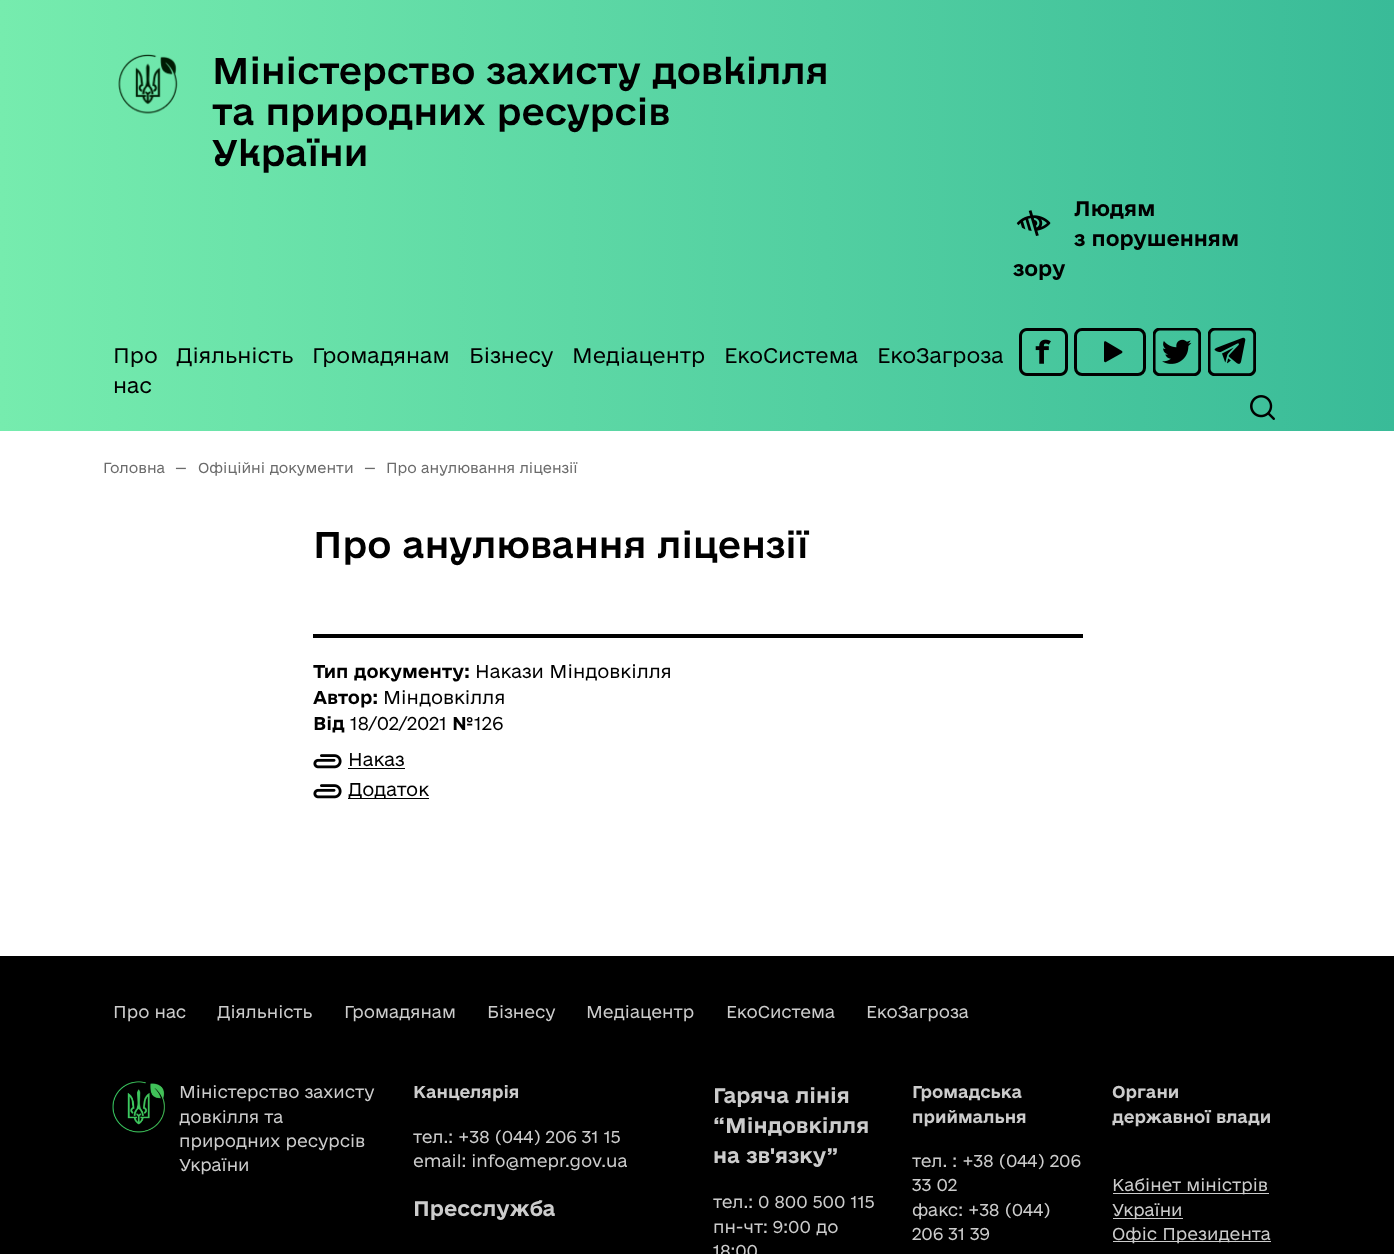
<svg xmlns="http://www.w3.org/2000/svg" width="1394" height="1254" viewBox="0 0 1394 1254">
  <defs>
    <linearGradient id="g1" gradientUnits="userSpaceOnUse" x1="0" y1="216" x2="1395" y2="216"><stop offset="0" stop-color="#76ecae"/><stop offset="1" stop-color="#39bb98"/></linearGradient>
  </defs>
  <rect width="100%" height="100%" fill="#fff"/>
  <path d="M0 0h1394v431H0z" fill="url(#g1)"/>
  <image x="118" y="54" width="60" height="60" href="img/1.png"/>
  <image x="1016" y="210" width="35" height="26" href="img/2.png"/>
  <image x="1019" y="328" width="49" height="48" href="img/3.png"/>
  <rect x="1075.5" y="329.5" width="69" height="45" rx="6.5" fill="none" stroke="#000" stroke-width="3"/>
  <image x="1153" y="328" width="48" height="48" href="img/4.png"/>
  <image x="1208" y="328" width="48" height="48" href="img/5.png"/>
  <path d="M1122 351C1122.5 351.5 1122.5 352.5 1122 353L1106 362C1105 362.5 1104 362 1104 361V342.5C1104 341.5 1105 341 1106 341.5Z" fill="#000"/>
  <image x="1250" y="395" width="25" height="25" href="img/6.png"/>
  <path d="M313 634h770v4H313z" fill="#000"/>
  <image x="313" y="754" width="29" height="15" href="img/7.png"/>
  <path d="M348 768h57v1H348z" fill="#000"/>
  <image x="313" y="784" width="29" height="15" href="img/7.png"/>
  <path d="M348 798h81v1H348z" fill="#000"/>
  <path d="M0 956h1394v298H0z" fill="#000"/>
  <image x="112" y="1081" width="53" height="52" href="img/8.png"/>
  <path d="M1113 1193h156v1H1113z" fill="#ccc"/>
  <path d="M1113 1218h70v1H1113z" fill="#ccc"/>
  <path d="M1113 1241h158v1H1113z" fill="#ccc"/>
  <g font-family="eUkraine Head" font-size="35" font-weight="500" fill="#000">
    <text x="212" y="84">Міністерство захисту довкілля</text>
    <text x="212" y="125">та природних ресурсів</text>
    <text x="212" y="166">України</text>
  </g>
  <g font-family="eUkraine" font-size="20" font-weight="bold" fill="#000">
    <text x="1074" y="216">Людям</text>
    <text x="1074" y="246">з порушенням</text>
    <text x="1013" y="276">зору</text>
  </g>
  <g font-family="eUkraine" font-size="20" font-weight="300" fill="#000">
    <text x="113" y="363">Про</text>
    <text x="113" y="393">нас</text>
    <text x="176" y="363">Діяльність</text>
    <text x="312" y="363">Громадянам</text>
    <text x="469" y="363">Бізнесу</text>
    <text x="572" y="363">Медіацентр</text>
    <text x="724" y="363">ЕкоСистема</text>
    <text x="877" y="363">ЕкоЗагроза</text>
  </g>
  <g font-family="eUkraine" font-size="13.75" font-weight="300" fill="#6b6b6b">
    <text x="103" y="473">Головна</text>
    <text x="175" y="473">—</text>
    <text x="198" y="473">Офіційні документи</text>
    <text x="364" y="473">—</text>
    <text x="386" y="473">Про анулювання ліцензії</text>
  </g>
  <text x="313" y="558" font-family="eUkraine Head" font-size="35" font-weight="500" fill="#000">Про анулювання ліцензії</text>
  <text x="313" y="678" font-family="eUkraine" font-size="17.5" font-weight="bold" fill="#000">Тип документу:</text>
  <text x="475" y="678" font-family="eUkraine" font-size="17.5" font-weight="300" fill="#000">Накази Міндовкілля</text>
  <text x="313" y="704" font-family="eUkraine" font-size="17.5" font-weight="bold" fill="#000">Автор:</text>
  <text x="383" y="704" font-family="eUkraine" font-size="17.5" font-weight="300" fill="#000">Міндовкілля</text>
  <text x="313" y="730" font-family="eUkraine" font-size="17.5" font-weight="bold" fill="#000">Від</text>
  <text x="350" y="730" font-family="eUkraine" font-size="17.5" font-weight="300" fill="#000">18/02/2021</text>
  <text x="452" y="730" font-family="eUkraine" font-size="17.5" font-weight="bold" fill="#000">№</text>
  <g font-family="eUkraine" font-size="17.5" font-weight="300" fill="#000">
    <text x="474" y="730">126</text>
    <text x="348" y="766">Наказ</text>
    <text x="348" y="796">Додаток</text>
  </g>
  <g font-family="eUkraine" font-size="16.25" font-weight="300" fill="#ccc">
    <text x="113" y="1018">Про нас</text>
    <text x="217" y="1018">Діяльність</text>
    <text x="344" y="1018">Громадянам</text>
    <text x="487" y="1018">Бізнесу</text>
    <text x="586" y="1018">Медіацентр</text>
    <text x="726" y="1018">ЕкоСистема</text>
    <text x="866" y="1018">ЕкоЗагроза</text>
    <text x="179" y="1098">Міністерство захисту</text>
    <text x="179" y="1123">довкілля та</text>
    <text x="179" y="1147">природних ресурсів</text>
    <text x="179" y="1171">України</text>
  </g>
  <text x="413" y="1098" font-family="eUkraine" font-size="16.25" font-weight="bold" fill="#ccc">Канцелярія</text>
  <g font-family="eUkraine" font-size="16.25" font-weight="300" fill="#ccc">
    <text x="413" y="1143">тел.: +38 (044) 206 31 15</text>
    <text x="413" y="1167">email: info@mepr.gov.ua</text>
  </g>
  <g font-family="eUkraine" font-size="20" font-weight="bold" fill="#ccc">
    <text x="413" y="1216">Пресслужба</text>
    <text x="713" y="1103">Гаряча лінія</text>
    <text x="713" y="1133">“Міндовкілля</text>
    <text x="713" y="1163">на зв'язку”</text>
  </g>
  <g font-family="eUkraine" font-size="16.25" font-weight="300" fill="#ccc">
    <text x="713" y="1208">тел.: 0 800 500 115</text>
    <text x="713" y="1233">пн-чт: 9:00 до</text>
    <text x="713" y="1257">18:00</text>
  </g>
  <g font-family="eUkraine" font-size="16.25" font-weight="bold" fill="#ccc">
    <text x="912" y="1098">Громадська</text>
    <text x="912" y="1123">приймальня</text>
  </g>
  <g font-family="eUkraine" font-size="16.25" font-weight="300" fill="#ccc">
    <text x="912" y="1167">тел. : +38 (044) 206</text>
    <text x="912" y="1191">33 02</text>
    <text x="912" y="1216">факс: +38 (044)</text>
    <text x="912" y="1240">206 31 39</text>
  </g>
  <g font-family="eUkraine" font-size="16.25" font-weight="bold" fill="#ccc">
    <text x="1112" y="1098">Органи</text>
    <text x="1112" y="1123">державної влади</text>
  </g>
  <g font-family="eUkraine" font-size="16.25" font-weight="300" fill="#ccc">
    <text x="1112" y="1191">Кабінет міністрів</text>
    <text x="1112" y="1216">України</text>
    <text x="1112" y="1240">Офіс Президента</text>
  </g>
</svg>
